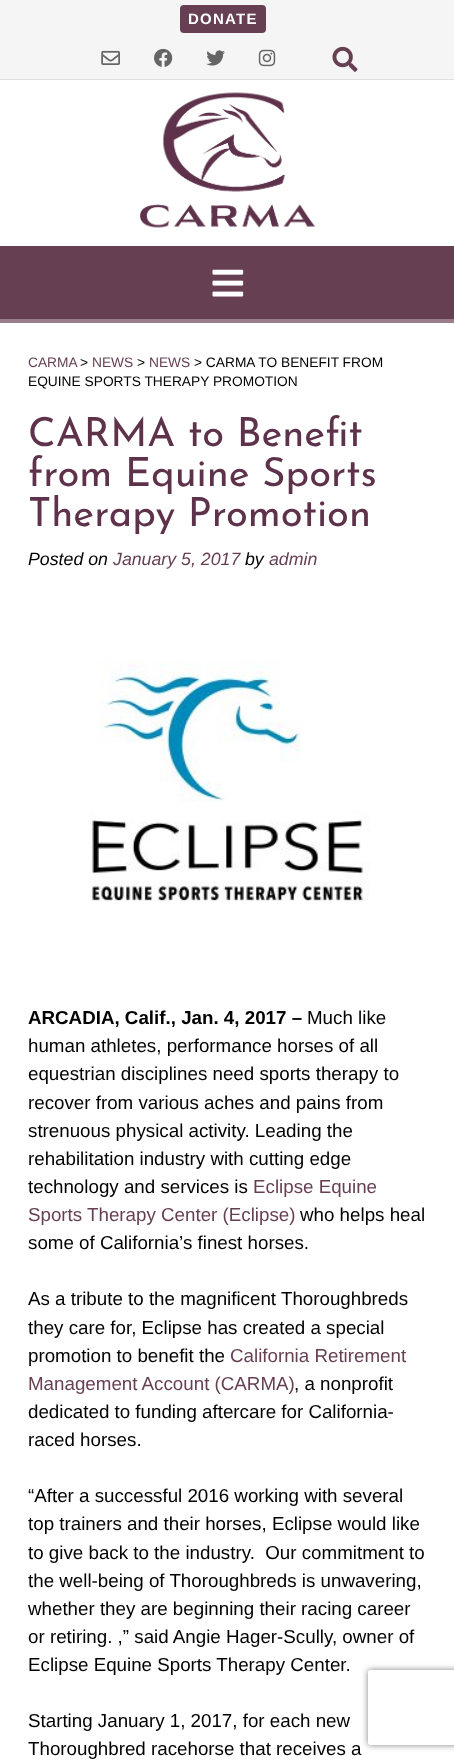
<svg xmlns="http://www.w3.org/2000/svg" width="454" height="1762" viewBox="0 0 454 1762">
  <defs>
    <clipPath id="clip1"><path d="M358 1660H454V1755H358ZM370.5 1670H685.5C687 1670 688 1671 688 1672.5V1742.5C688 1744 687 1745 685.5 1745H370.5C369 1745 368 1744 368 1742.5V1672.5C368 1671 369 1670 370.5 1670Z" clip-rule="evenodd"/></clipPath>
  </defs>
  <rect width="100%" height="100%" fill="#fff"/>
  <path d="M0 0h454v79H0z" fill="#f5f5f5"/>
  <path d="M0 79h454v1H0z" fill="#e0e0e0"/>
  <rect x="180" y="5" width="86" height="28" rx="4" fill="#663f53"/>
  <image x="101" y="50" width="19" height="15" href="img/1.png"/>
  <image x="154" y="48" width="19" height="19" href="img/2.png"/>
  <image x="206" y="50" width="19" height="16" href="img/3.png"/>
  <image x="258" y="49" width="18" height="18" href="img/4.png"/>
  <image x="332" y="46" width="26" height="26" href="img/5.png"/>
  <image x="140" y="92" width="175" height="136" href="img/6.png"/>
  <path d="M0 246h454v73H0z" fill="#663f53"/>
  <path d="M0 319h454v4H0z" fill="#9b7d8c"/>
  <image x="212" y="269" width="32" height="28" href="img/7.png"/>
  <image x="90" y="661" width="280" height="240" href="img/8.png"/>
  <g clip-path="url(#clip1)">
    <rect x="368" y="1670" width="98" height="75" rx="2.5" fill="#808080" filter="blur(3px)"/>
  </g>
  <text x="188" y="24" font-family="Liberation Sans" font-size="15" font-weight="bold" letter-spacing="1.25" fill="#fff">DONATE</text>
  <text x="28" y="367" font-family="Liberation Sans" font-size="13.75" fill="#663f53">CARMA</text>
  <text x="80" y="367" font-family="Liberation Sans" font-size="13.75" fill="#000">&gt;</text>
  <text x="92" y="367" font-family="Liberation Sans" font-size="13.75" fill="#663f53">NEWS</text>
  <text x="137" y="367" font-family="Liberation Sans" font-size="13.75" fill="#000">&gt;</text>
  <text x="149" y="367" font-family="Liberation Sans" font-size="13.75" fill="#663f53">NEWS</text>
  <g font-family="Liberation Sans" font-size="13.75" fill="#000">
    <text x="194" y="367">&gt; CARMA TO BENEFIT FROM</text>
    <text x="28" y="386">EQUINE SPORTS THERAPY PROMOTION</text>
  </g>
  <g font-family="Josefin Sans" font-size="40" fill="#5e324b">
    <text x="28" y="446">CARMA to Benefit</text>
    <text x="28" y="486">from Equine Sports</text>
    <text x="28" y="526">Therapy Promotion</text>
  </g>
  <text x="28" y="565" font-family="Liberation Sans" font-size="17.75" font-style="italic" fill="#000">Posted on</text>
  <text x="113" y="565" font-family="Liberation Sans" font-size="17.75" font-style="italic" fill="#663f53">January 5, 2017</text>
  <text x="245" y="565" font-family="Liberation Sans" font-size="17.75" font-style="italic" fill="#000">by</text>
  <text x="269" y="565" font-family="Liberation Sans" font-size="17.75" font-style="italic" fill="#663f53">admin</text>
  <text x="28" y="1024" font-family="Liberation Sans" font-size="18.75" font-weight="bold" fill="#000">ARCADIA, Calif., Jan. 4, 2017 –</text>
  <g font-family="Liberation Sans" font-size="18.75" fill="#000">
    <text x="307" y="1024">Much like</text>
    <text x="28" y="1052">human athletes, performance horses of all</text>
    <text x="28" y="1080">equestrian disciplines need sports therapy to</text>
    <text x="28" y="1109">recover from various aches and pains from</text>
    <text x="28" y="1137">strenuous physical activity. Leading the</text>
    <text x="28" y="1165">rehabilitation industry with cutting edge</text>
    <text x="28" y="1193">technology and services is</text>
  </g>
  <g font-family="Liberation Sans" font-size="18.75" fill="#663f53">
    <text x="253" y="1193">Eclipse Equine</text>
    <text x="28" y="1221">Sports Therapy Center (Eclipse)</text>
  </g>
  <g font-family="Liberation Sans" font-size="18.75" fill="#000">
    <text x="300" y="1221">who helps heal</text>
    <text x="28" y="1249">some of California’s finest horses.</text>
    <text x="28" y="1305">As a tribute to the magnificent Thoroughbreds</text>
    <text x="28" y="1334">they care for, Eclipse has created a special</text>
    <text x="28" y="1362">promotion to benefit the</text>
  </g>
  <g font-family="Liberation Sans" font-size="18.75" fill="#663f53">
    <text x="230" y="1362">California Retirement</text>
    <text x="28" y="1390">Management Account (CARMA)</text>
  </g>
  <g font-family="Liberation Sans" font-size="18.75" fill="#000">
    <text x="294" y="1390">, a nonprofit</text>
    <text x="28" y="1418">dedicated to funding aftercare for California-</text>
    <text x="28" y="1446">raced horses.</text>
    <text x="28" y="1502">“After a successful 2016 working with several</text>
    <text x="28" y="1530">top trainers and their horses, Eclipse would like</text>
    <text x="28" y="1559" xml:space="preserve">to give back to the industry.  Our commitment to</text>
    <text x="28" y="1587">the well-being of Thoroughbreds is unwavering,</text>
    <text x="28" y="1615">whether they are beginning their racing career</text>
    <text x="28" y="1643">or retiring. ,” said Angie Hager-Scully, owner of</text>
    <text x="28" y="1671">Eclipse Equine Sports Therapy Center.</text>
    <text x="28" y="1727">Starting January 1, 2017, for each new</text>
    <text x="28" y="1755">Thoroughbred racehorse that receives a</text>
  </g>
</svg>
